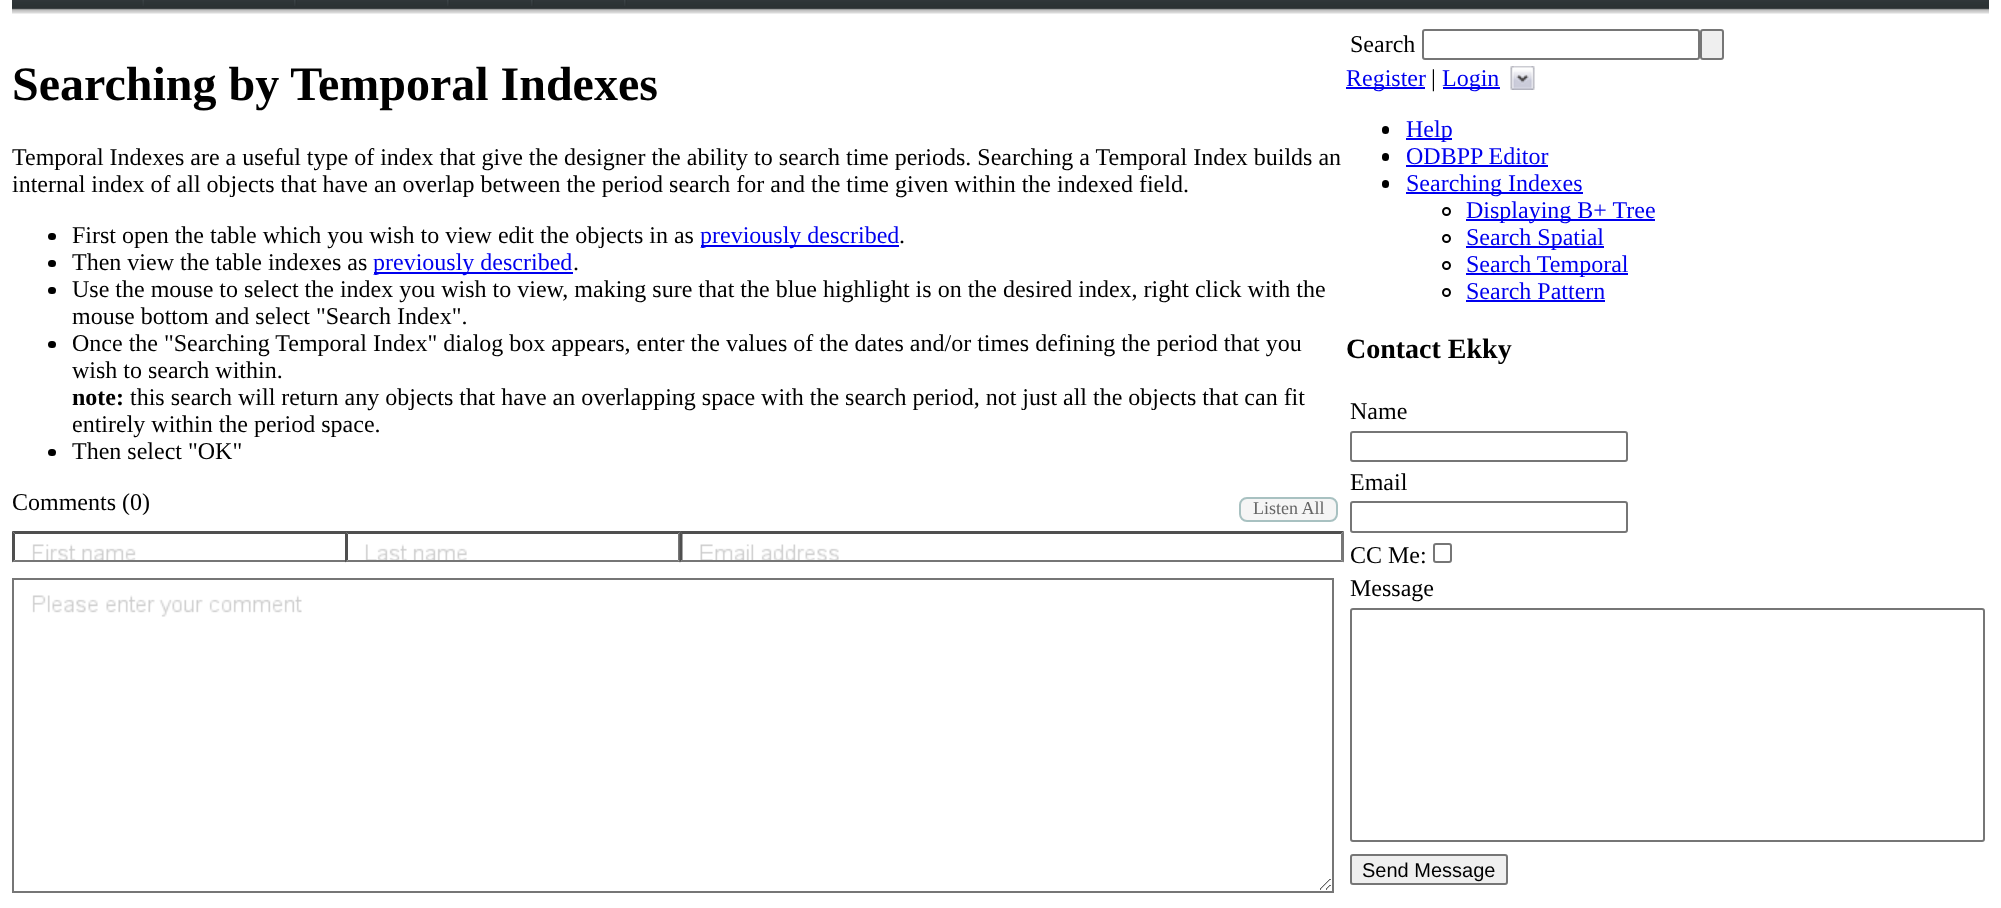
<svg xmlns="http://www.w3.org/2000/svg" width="2001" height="908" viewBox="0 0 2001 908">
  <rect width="100%" height="100%" fill="#fff"/>
  <image x="12" y="0" width="1977" height="14" href="img/1.png"/>
  <image x="142" y="0" width="2" height="6" href="img/2.png"/>
  <image x="294" y="0" width="3" height="6" href="img/3.png"/>
  <image x="447" y="0" width="3" height="6" href="img/3.png"/>
  <image x="531" y="0" width="3" height="6" href="img/3.png"/>
  <image x="624" y="0" width="3" height="6" href="img/4.png"/>
  <rect x="48" y="233" width="8" height="7" rx="3.5" fill="#000"/>
  <path d="M701 245h198v2H701z" fill="#00e"/>
  <rect x="48" y="260" width="8" height="7" rx="3.5" fill="#000"/>
  <path d="M374 272h199v2H374z" fill="#00e"/>
  <rect x="48" y="287" width="8" height="7" rx="3.5" fill="#000"/>
  <rect x="48" y="341" width="8" height="7" rx="3.5" fill="#000"/>
  <rect x="48" y="449" width="8" height="7" rx="3.5" fill="#000"/>
  <rect x="1240" y="498" width="97" height="23" rx="7" fill="#f5f5f5" stroke="#a8c1c1" stroke-width="2"/>
  <image x="32" y="544" width="104" height="16" href="img/5.png"/>
  <path d="M12 531H348L345 534H15Z" fill="#4f4f4f"/>
  <path d="M348 562H12L15 560H345Z" fill="#767676"/>
  <path d="M12 562.5V531L15 534V559.5Z" fill="#4f4f4f"/>
  <image x="365" y="544" width="102" height="16" href="img/6.png"/>
  <path d="M345 531H681L678 534H348Z" fill="#4f4f4f"/>
  <path d="M681 531V562.5L678 559.5V534Z" fill="#767676"/>
  <path d="M681 562H345L348 560H678Z" fill="#767676"/>
  <path d="M345 562.5V531L348 534V559.5Z" fill="#4f4f4f"/>
  <image x="700" y="544" width="139" height="16" href="img/7.png"/>
  <path d="M680 531H1344L1341 534H682Z" fill="#4f4f4f"/>
  <path d="M1344 531V562.5L1341 559.5V534Z" fill="#767676"/>
  <path d="M1344 562H680L682 560H1341Z" fill="#767676"/>
  <path d="M679.5 562.5V531L682.5 534V559.5Z" fill="#4f4f4f"/>
  <image x="32" y="595" width="1299" height="295" href="img/8.png"/>
  <path d="M13 579h1320v313H13z" fill="none" stroke="#767676" stroke-width="2"/>
  <rect x="1423" y="30" width="276" height="29" rx="2" fill="none" stroke="#767676" stroke-width="2"/>
  <rect x="1701" y="30" width="22" height="29" rx="2" fill="#efefef" stroke="#767676" stroke-width="2"/>
  <path d="M1346 87h79v2H1346z" fill="#00e"/>
  <path d="M1443 87h57v2H1443z" fill="#00e"/>
  <image x="1510" y="66" width="25" height="24" href="img/9.png"/>
  <rect x="1382" y="126" width="7" height="8" rx="3.5" fill="#000"/>
  <path d="M1406 138h46v2H1406z" fill="#00e"/>
  <rect x="1382" y="153" width="7" height="8" rx="3.5" fill="#000"/>
  <path d="M1406 165h142v2H1406z" fill="#00e"/>
  <rect x="1382" y="180" width="7" height="8" rx="3.5" fill="#000"/>
  <path d="M1406 192h177v2H1406z" fill="#00e"/>
  <circle cx="1446.5" cy="211.5" r="3.5" fill="none" stroke="#000" stroke-width="2"/>
  <path d="M1466 219h189v2H1466z" fill="#00e"/>
  <circle cx="1446.5" cy="238.5" r="3.5" fill="none" stroke="#000" stroke-width="2"/>
  <path d="M1466 246h138v2H1466z" fill="#00e"/>
  <circle cx="1446.5" cy="265.5" r="3.5" fill="none" stroke="#000" stroke-width="2"/>
  <path d="M1466 273h162v2H1466z" fill="#00e"/>
  <circle cx="1446.5" cy="292.5" r="3.5" fill="none" stroke="#000" stroke-width="2"/>
  <path d="M1466 300h139v2H1466z" fill="#00e"/>
  <rect x="1351" y="432" width="276" height="29" rx="2" fill="none" stroke="#767676" stroke-width="2"/>
  <rect x="1351" y="502" width="276" height="30" rx="2" fill="none" stroke="#767676" stroke-width="2"/>
  <rect x="1434" y="544" width="17" height="18" rx="2" fill="none" stroke="#767676" stroke-width="2"/>
  <rect x="1351" y="609" width="633" height="232" rx="2" fill="none" stroke="#767676" stroke-width="2"/>
  <rect x="1351" y="855" width="156" height="29" rx="2" fill="#efefef" stroke="#767676" stroke-width="2"/>
  <text x="12" y="100" font-family="Liberation Serif" font-size="48" font-weight="bold" fill="#000">Searching by Temporal Indexes</text>
  <g font-family="Liberation Serif" font-size="24" fill="#000">
    <text x="12" y="165">Temporal Indexes are a useful type of index that give the designer the ability to search time periods. Searching a Temporal Index builds an</text>
    <text x="12" y="192">internal index of all objects that have an overlap between the period search for and the time given within the indexed field.</text>
    <text x="72" y="243">First open the table which you wish to view edit the objects in as</text>
  </g>
  <text x="700" y="243" font-family="Liberation Serif" font-size="24" fill="#00e">previously described</text>
  <g font-family="Liberation Serif" font-size="24" fill="#000">
    <text x="899" y="243">.</text>
    <text x="72" y="270">Then view the table indexes as</text>
  </g>
  <text x="373" y="270" font-family="Liberation Serif" font-size="24" fill="#00e">previously described</text>
  <g font-family="Liberation Serif" font-size="24" fill="#000">
    <text x="573" y="270">.</text>
    <text x="72" y="297">Use the mouse to select the index you wish to view, making sure that the blue highlight is on the desired index, right click with the</text>
    <text x="72" y="324">mouse bottom and select "Search Index".</text>
    <text x="72" y="351">Once the "Searching Temporal Index" dialog box appears, enter the values of the dates and/or times defining the period that you</text>
    <text x="72" y="378">wish to search within.</text>
  </g>
  <text x="72" y="405" font-family="Liberation Serif" font-size="24" font-weight="bold" fill="#000">note:</text>
  <g font-family="Liberation Serif" font-size="24" fill="#000">
    <text x="130" y="405">this search will return any objects that have an overlapping space with the search period, not just all the objects that can fit</text>
    <text x="72" y="432">entirely within the period space.</text>
    <text x="72" y="459">Then select "OK"</text>
    <text x="12" y="510">Comments (0)</text>
  </g>
  <text x="1253" y="514" font-family="Liberation Serif" font-size="18" fill="#656565">Listen All</text>
  <text x="1350" y="52" font-family="Liberation Serif" font-size="24" fill="#000">Search</text>
  <text x="1346" y="86" font-family="Liberation Serif" font-size="24" fill="#00e">Register</text>
  <text x="1431" y="86" font-family="Liberation Serif" font-size="24" fill="#000">|</text>
  <g font-family="Liberation Serif" font-size="24" fill="#00e">
    <text x="1442" y="86">Login</text>
    <text x="1406" y="137">Help</text>
    <text x="1406" y="164">ODBPP Editor</text>
    <text x="1406" y="191">Searching Indexes</text>
    <text x="1466" y="218">Displaying B+ Tree</text>
    <text x="1466" y="245">Search Spatial</text>
    <text x="1466" y="272">Search Temporal</text>
    <text x="1466" y="299">Search Pattern</text>
  </g>
  <text x="1346" y="358" font-family="Liberation Serif" font-size="28" font-weight="bold" fill="#000">Contact Ekky</text>
  <g font-family="Liberation Serif" font-size="24" fill="#000">
    <text x="1350" y="419">Name</text>
    <text x="1350" y="490">Email</text>
    <text x="1350" y="563">CC Me:</text>
    <text x="1350" y="596">Message</text>
  </g>
  <text x="1362" y="877" font-family="Liberation Sans" font-size="20" fill="#000">Send Message</text>
</svg>
